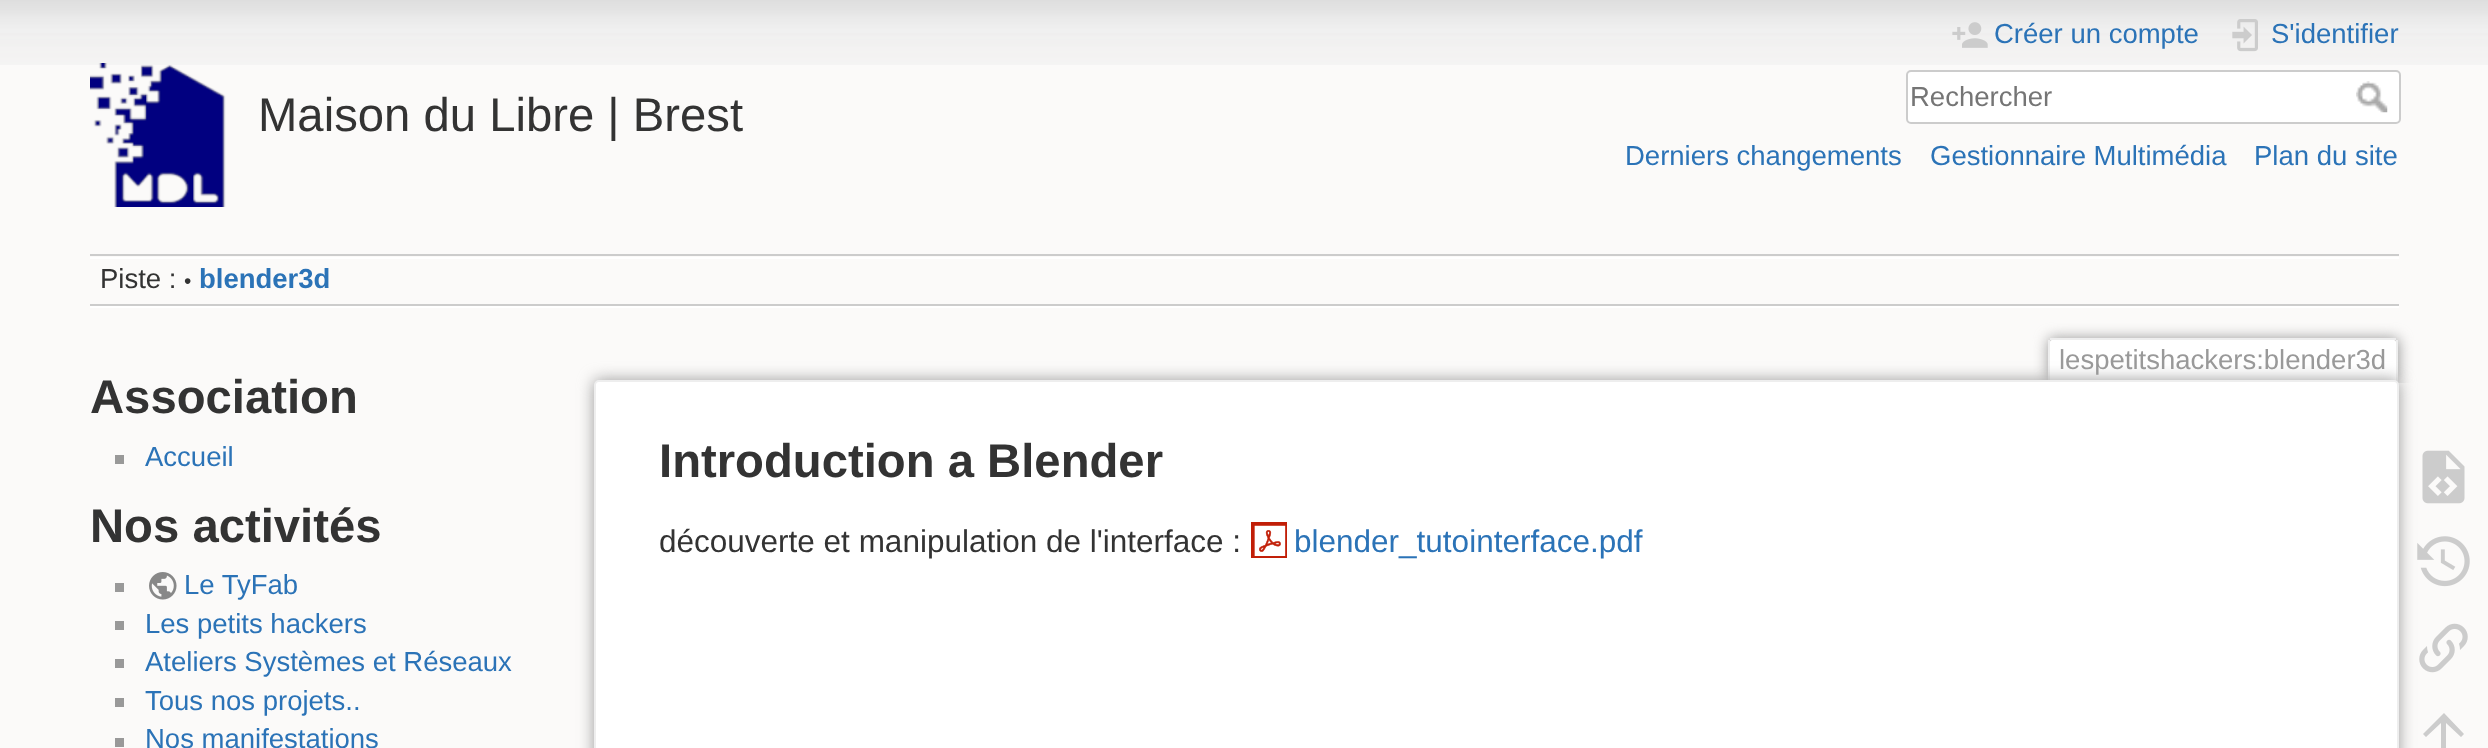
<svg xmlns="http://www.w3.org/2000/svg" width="2488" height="748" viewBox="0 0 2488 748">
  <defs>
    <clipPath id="clip1"><path d="M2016 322h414v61H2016z"/></clipPath>
  </defs>
  <rect width="100%" height="100%" fill="#fbfaf9"/>
  <image x="0" y="0" width="2488" height="65" href="img/1.png"/>
  <image x="90" y="63" width="136" height="144" href="img/2.png"/>
  <image x="1952" y="22" width="36" height="26" href="img/3.png"/>
  <image x="2232" y="19" width="26" height="33" href="img/4.png"/>
  <rect x="1907" y="71" width="493" height="52" rx="4" fill="#fff" stroke="#ccc" stroke-width="2"/>
  <image x="2356" y="81" width="32" height="32" href="img/5.png"/>
  <path d="M90 254h2309v2H90z" fill="#ccc"/>
  <path d="M90 306h2309v2H90z" fill="#fff"/>
  <path d="M90 257h2309v2H90z" fill="#fff"/>
  <path d="M90 304h2309v2H90z" fill="#ccc"/>
  <path d="M115 455h9v9H115z" fill="#999"/>
  <path d="M115 583h9v9H115z" fill="#999"/>
  <image x="149" y="572" width="28" height="28" href="img/6.png"/>
  <path d="M115 621h9v9H115z" fill="#999"/>
  <path d="M115 659h9v9H115z" fill="#999"/>
  <path d="M115 698h9v9H115z" fill="#999"/>
  <path d="M115 738h9v9H115z" fill="#999"/>
  <g clip-path="url(#clip1)">
    <rect x="2048" y="338" width="351" height="45" rx="5" fill="#999" filter="blur(7px)"/>
  </g>
  <path d="M2052 340H2394C2395 340 2396 341 2396 342V383H2050V342C2050 341 2051 340 2052 340Z" fill="#fff"/>
  <path d="M2050 338h346v2H2050z" fill="#eee"/>
  <path d="M2396 340h2v43H2396z" fill="#eee"/>
  <path d="M2048 340h2v43H2048z" fill="#eee"/>
  <rect x="594" y="380" width="1805" height="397" rx="5" fill="#999" filter="blur(8px)"/>
  <rect x="595" y="381" width="1803" height="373" rx="4" fill="#fff" stroke="#eee" stroke-width="2"/>
  <image x="1251" y="522" width="36" height="36" href="img/7.png"/>
  <image x="2422" y="450" width="43" height="54" href="img/8.png"/>
  <image x="2417" y="536" width="53" height="51" href="img/9.png"/>
  <image x="2419" y="623" width="49" height="50" href="img/10.png"/>
  <path d="M2446 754H2441V723L2426 737L2423 734L2444 713L2464 734L2461 737L2446 723Z" fill="#ccc"/>
  <text x="258" y="131" font-family="Liberation Sans" font-size="47.25" fill="#333">Maison du Libre | Brest</text>
  <g font-family="Liberation Sans" font-size="27.5" fill="#2b73b7">
    <text x="1994" y="43">Créer un compte</text>
    <text x="2271" y="43">S'identifier</text>
  </g>
  <text x="1910" y="106" font-family="Liberation Sans" font-size="27.5" fill="#757575">Rechercher</text>
  <g font-family="Liberation Sans" font-size="27.5" fill="#2b73b7">
    <text x="1625" y="165">Derniers changements</text>
    <text x="1930" y="165">Gestionnaire Multimédia</text>
    <text x="2254" y="165">Plan du site</text>
  </g>
  <text x="100" y="288" font-family="Liberation Sans" font-size="27.5" fill="#333">Piste :</text>
  <text x="184" y="288" font-family="Liberation Sans" font-size="21" fill="#333">•</text>
  <text x="199" y="288" font-family="Liberation Sans" font-size="27.5" font-weight="bold" fill="#2b73b7">blender3d</text>
  <text x="90" y="413" font-family="Liberation Sans" font-size="47.25" font-weight="bold" fill="#333">Association</text>
  <text x="145" y="466" font-family="Liberation Sans" font-size="27.5" fill="#2b73b7">Accueil</text>
  <text x="90" y="542" font-family="Liberation Sans" font-size="47.25" font-weight="bold" fill="#333">Nos activités</text>
  <g font-family="Liberation Sans" font-size="27.5" fill="#2b73b7">
    <text x="184" y="594">Le TyFab</text>
    <text x="145" y="633">Les petits hackers</text>
    <text x="145" y="671">Ateliers Systèmes et Réseaux</text>
    <text x="145" y="710">Tous nos projets..</text>
    <text x="145" y="748">Nos manifestations</text>
  </g>
  <text x="2059" y="369" font-family="Liberation Sans" font-size="27.5" fill="#999">lespetitshackers:blender3d</text>
  <text x="659" y="477" font-family="Liberation Sans" font-size="47.25" font-weight="bold" fill="#333">Introduction a Blender</text>
  <text x="659" y="552" font-family="Liberation Sans" font-size="31.5" fill="#333">découverte et manipulation de l'interface :</text>
  <text x="1294" y="552" font-family="Liberation Sans" font-size="31.5" fill="#2b73b7">blender_tutointerface.pdf</text>
</svg>
